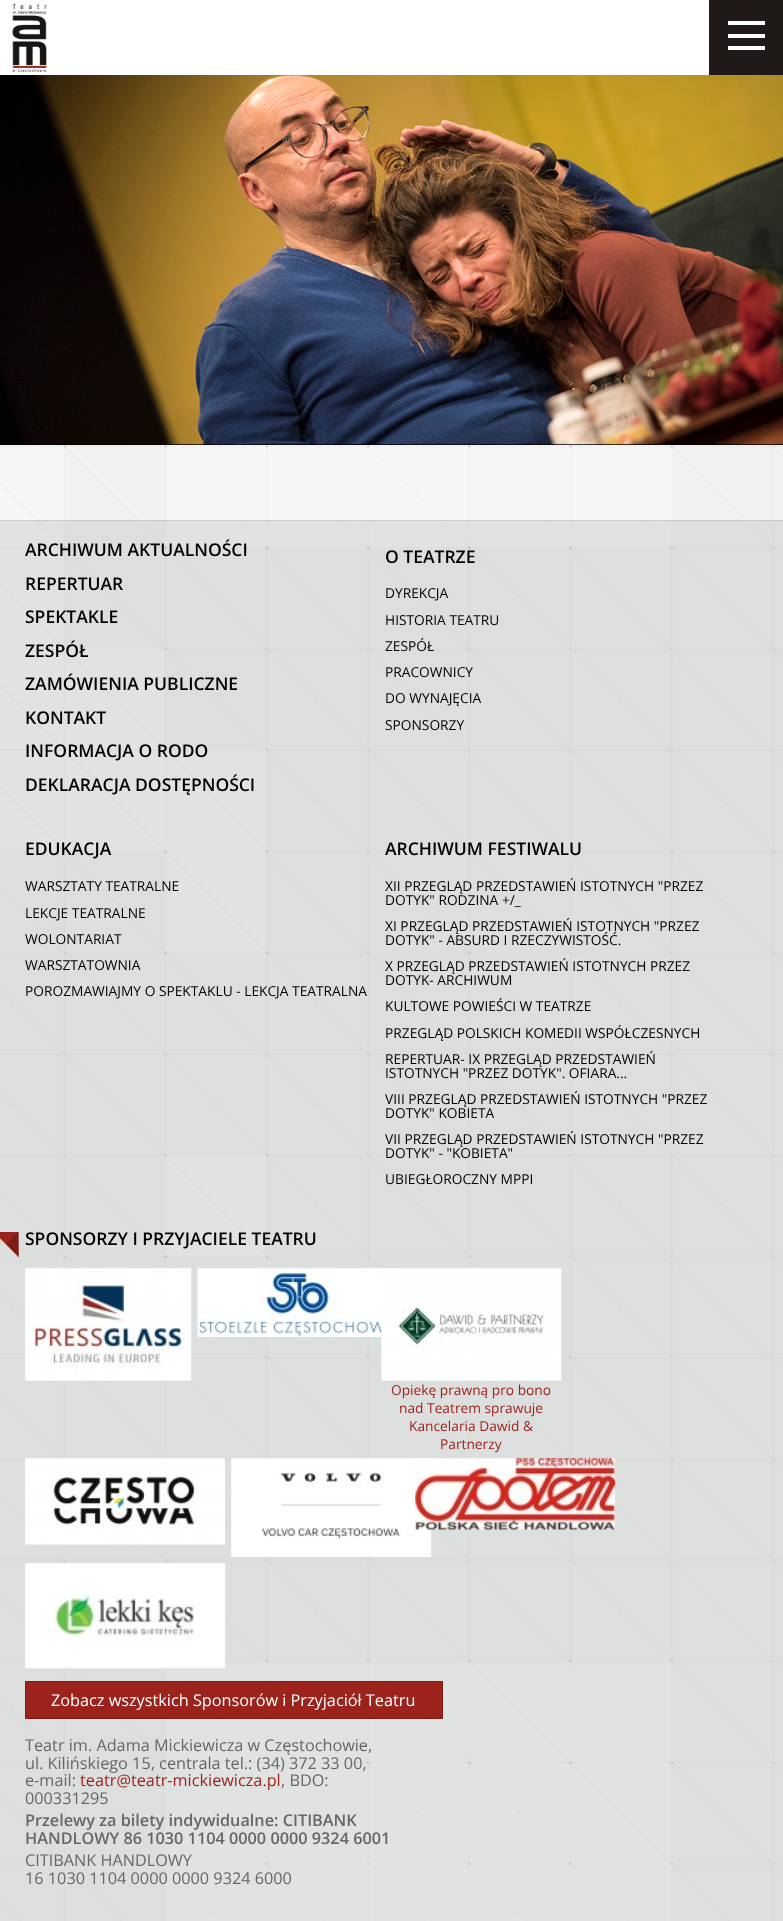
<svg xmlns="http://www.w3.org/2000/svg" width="783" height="1921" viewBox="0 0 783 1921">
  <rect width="100%" height="100%" fill="#fff"/>
  <image x="0" y="445" width="783" height="1476" href="img/1.png"/>
  <image x="12" y="3" width="35" height="70" href="img/2.png"/>
  <path d="M709 0h74v75H709z" fill="#1f1a17"/>
  <path d="M728 34h37v4H728z" fill="#fff"/>
  <path d="M728 21h37v4H728z" fill="#fff"/>
  <path d="M728 46h37v4H728z" fill="#fff"/>
  <path d="M0 444h783v1H0z" fill="#000"/>
  <image x="0" y="75" width="783" height="370" href="img/3.png"/>
  <path d="M0 521h783v1400H0z" fill="#93949433"/>
  <path d="M0 520h783v1H0z" fill="#cbcccc"/>
  <image x="0" y="1232" width="19" height="25" href="img/4.png"/>
  <image x="25" y="1268" width="167" height="113" href="img/5.png"/>
  <image x="197" y="1268" width="201" height="69" href="img/6.png"/>
  <image x="381" y="1268" width="181" height="113" href="img/7.png"/>
  <image x="25" y="1458" width="200" height="87" href="img/8.png"/>
  <image x="231" y="1458" width="201" height="99" href="img/9.png"/>
  <image x="415" y="1458" width="200" height="72" href="img/10.png"/>
  <image x="25" y="1563" width="200" height="106" href="img/11.png"/>
  <path d="M25.5 1681.5h417v37H25.5z" fill="#9b231c" stroke="#7b1c16"/>
  <g font-family="Open Sans" font-size="17.5" font-weight="600" fill="#000">
    <text x="25" y="556">ARCHIWUM AKTUALNOŚCI</text>
    <text x="25" y="590">REPERTUAR</text>
    <text x="25" y="623">SPEKTAKLE</text>
    <text x="25" y="657">ZESPÓŁ</text>
    <text x="25" y="690">ZAMÓWIENIA PUBLICZNE</text>
    <text x="25" y="724">KONTAKT</text>
    <text x="25" y="757">INFORMACJA O RODO</text>
    <text x="25" y="791">DEKLARACJA DOSTĘPNOŚCI</text>
    <text x="385" y="563">O TEATRZE</text>
  </g>
  <g font-family="Open Sans" font-size="13.75" fill="#000">
    <text x="385" y="598">DYREKCJA</text>
    <text x="385" y="625">HISTORIA TEATRU</text>
    <text x="385" y="651">ZESPÓŁ</text>
    <text x="385" y="677">PRACOWNICY</text>
    <text x="385" y="703">DO WYNAJĘCIA</text>
    <text x="385" y="730">SPONSORZY</text>
  </g>
  <text x="25" y="855" font-family="Open Sans" font-size="17.5" font-weight="600" fill="#000">EDUKACJA</text>
  <g font-family="Open Sans" font-size="13.75" fill="#000">
    <text x="25" y="891">WARSZTATY TEATRALNE</text>
    <text x="25" y="918">LEKCJE TEATRALNE</text>
    <text x="25" y="944">WOLONTARIAT</text>
    <text x="25" y="970">WARSZTATOWNIA</text>
    <text x="25" y="996">POROZMAWIAJMY O SPEKTAKLU - LEKCJA TEATRALNA</text>
  </g>
  <text x="385" y="855" font-family="Open Sans" font-size="17.5" font-weight="600" fill="#000">ARCHIWUM FESTIWALU</text>
  <g font-family="Open Sans" font-size="13.75" fill="#000">
    <text x="385" y="891">XII PRZEGLĄD PRZEDSTAWIEŃ ISTOTNYCH "PRZEZ</text>
    <text x="385" y="905">DOTYK" RODZINA +/_</text>
    <text x="385" y="931">XI PRZEGLĄD PRZEDSTAWIEŃ ISTOTNYCH "PRZEZ</text>
    <text x="385" y="945">DOTYK" - ABSURD I RZECZYWISTOŚĆ.</text>
    <text x="385" y="971">X PRZEGLĄD PRZEDSTAWIEŃ ISTOTNYCH PRZEZ</text>
    <text x="385" y="985">DOTYK- ARCHIWUM</text>
    <text x="385" y="1011">KULTOWE POWIEŚCI W TEATRZE</text>
    <text x="385" y="1038">PRZEGLĄD POLSKICH KOMEDII WSPÓŁCZESNYCH</text>
    <text x="385" y="1064">REPERTUAR- IX PRZEGLĄD PRZEDSTAWIEŃ</text>
    <text x="385" y="1078">ISTOTNYCH "PRZEZ DOTYK". OFIARA...</text>
    <text x="385" y="1104">VIII PRZEGLĄD PRZEDSTAWIEŃ ISTOTNYCH "PRZEZ</text>
    <text x="385" y="1118">DOTYK" KOBIETA</text>
    <text x="385" y="1144">VII PRZEGLĄD PRZEDSTAWIEŃ ISTOTNYCH "PRZEZ</text>
    <text x="385" y="1158">DOTYK" - "KOBIETA"</text>
    <text x="385" y="1184">UBIEGŁOROCZNY MPPI</text>
  </g>
  <text x="25" y="1245" font-family="Open Sans" font-size="17.5" font-weight="600" fill="#000">SPONSORZY I PRZYJACIELE TEATRU</text>
  <g font-family="Open Sans" font-size="13.75" fill="#9b231c">
    <text x="391" y="1395">Opiekę prawną pro bono</text>
    <text x="399" y="1413">nad Teatrem sprawuje</text>
    <text x="409" y="1431">Kancelaria Dawid &amp;</text>
    <text x="440" y="1449">Partnerzy</text>
  </g>
  <text x="51" y="1706" font-family="Open Sans" font-size="16.25" fill="#fff">Zobacz wszystkich Sponsorów i Przyjaciół Teatru</text>
  <g font-family="Open Sans" font-size="16.25" fill="#666">
    <text x="25" y="1751">Teatr im. Adama Mickiewicza w Częstochowie,</text>
    <text x="25" y="1769">ul. Kilińskiego 15, centrala tel.: (34) 372 33 00,</text>
    <text x="25" y="1786">e-mail:</text>
  </g>
  <text x="80" y="1786" font-family="Open Sans" font-size="16.25" fill="#9b231c">teatr@teatr-mickiewicza.pl</text>
  <g font-family="Open Sans" font-size="16.25" fill="#666">
    <text x="281" y="1786">, BDO:</text>
    <text x="25" y="1804">000331295</text>
  </g>
  <g font-family="Open Sans" font-size="16.25" font-weight="600" fill="#666">
    <text x="25" y="1826">Przelewy za bilety indywidualne: CITIBANK</text>
    <text x="25" y="1844">HANDLOWY 86 1030 1104 0000 0000 9324 6001</text>
  </g>
  <g font-family="Open Sans" font-size="16.25" fill="#666">
    <text x="25" y="1866">CITIBANK HANDLOWY</text>
    <text x="25" y="1884">16 1030 1104 0000 0000 9324 6000</text>
  </g>
</svg>
